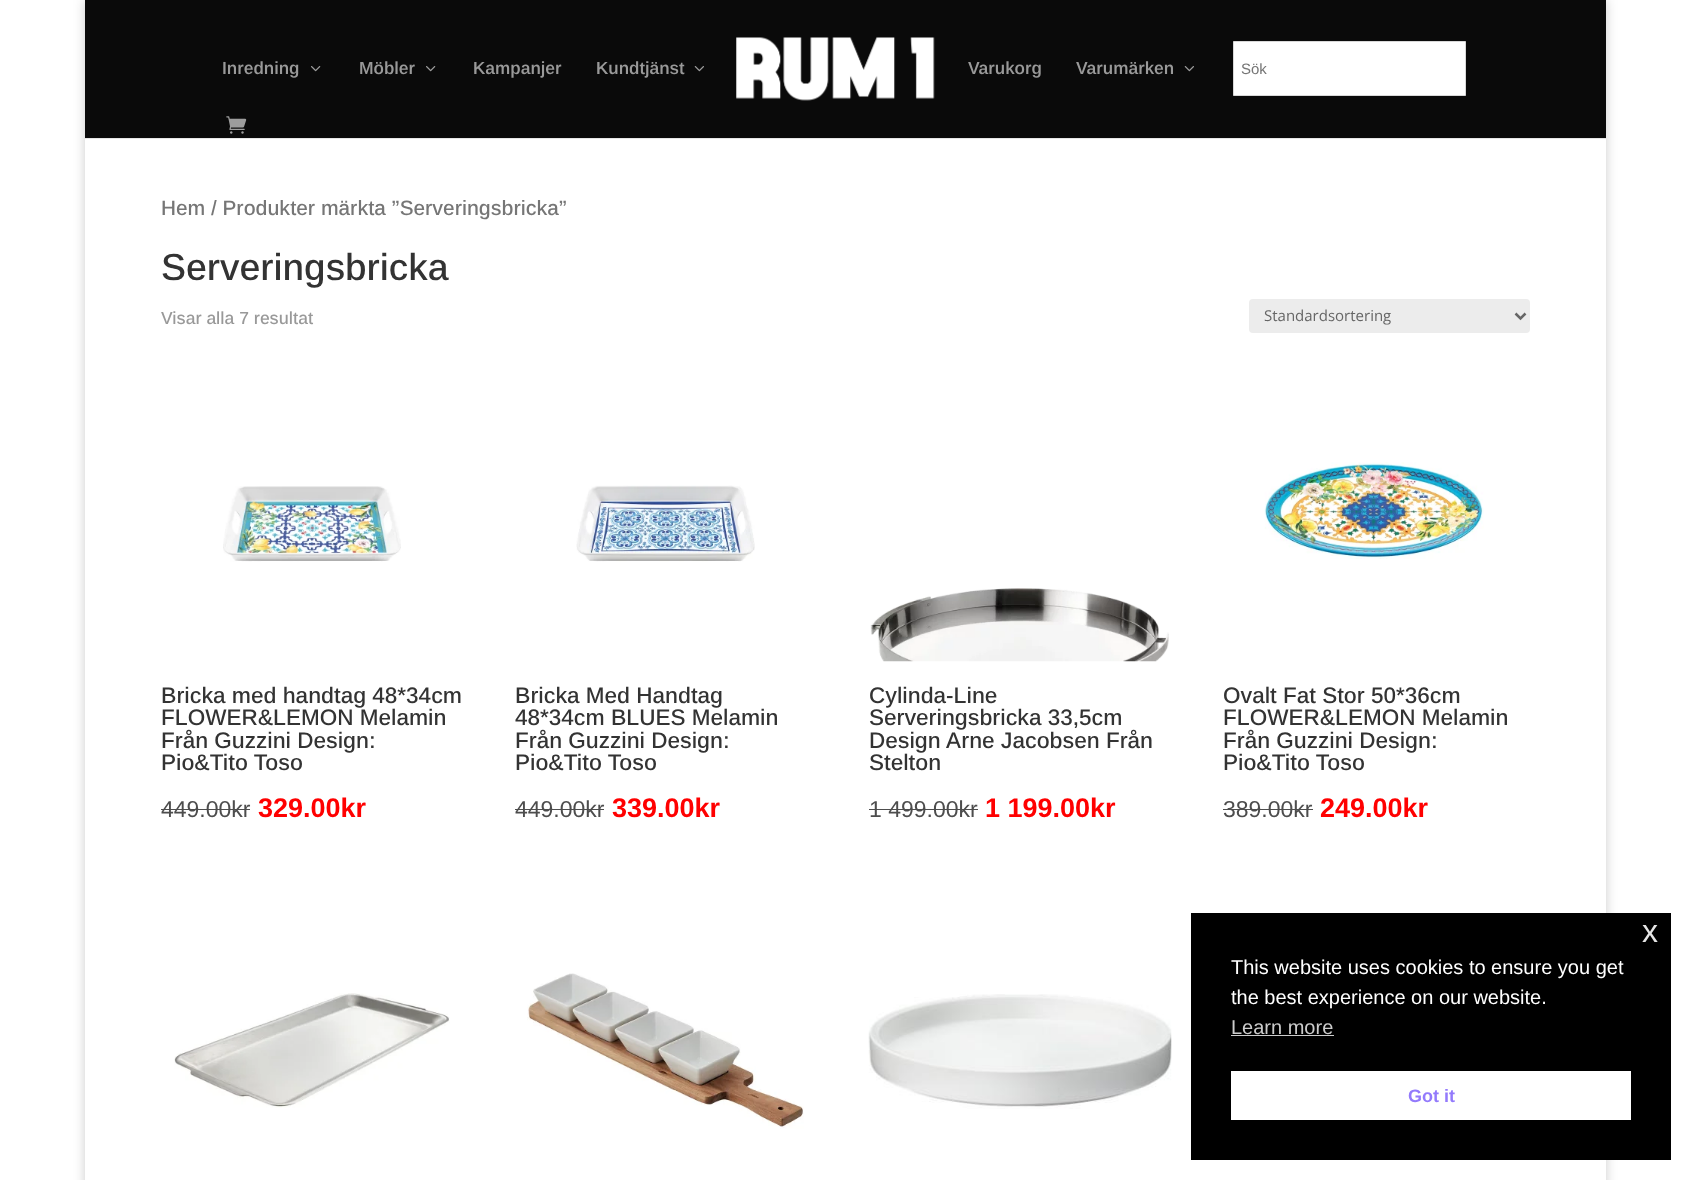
<svg xmlns="http://www.w3.org/2000/svg" width="1691" height="1180" viewBox="0 0 1691 1180">
  <defs>
    <clipPath id="clip1"><path d="M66 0H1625V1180H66ZM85 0H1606V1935H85Z" clip-rule="evenodd"/></clipPath>
  </defs>
  <rect width="100%" height="100%" fill="#fff"/>
  <g clip-path="url(#clip1)">
    <path d="M85 0h1521v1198H85z" fill="#00000033" filter="blur(6px)"/>
  </g>
  <path d="M85 138h1521v1H85z" fill="#e6e6e6"/>
  <path d="M85 0h1521v138H85z" fill="#0a0a0a"/>
  <image x="311" y="66" width="10" height="6" href="img/1.png"/>
  <image x="426" y="66" width="10" height="6" href="img/1.png"/>
  <image x="694" y="66" width="10" height="6" href="img/2.png"/>
  <image x="736" y="37" width="199" height="64" href="img/3.png"/>
  <image x="1184" y="66" width="10" height="6" href="img/2.png"/>
  <path d="M1233.5 41.5h232v54H1233.5z" fill="#fff" stroke="#d8d8d8"/>
  <image x="226" y="116" width="21" height="18" href="img/4.png"/>
  <rect x="1249" y="299" width="281" height="34" rx="4" fill="#ececec"/>
  <path d="M1515.5 313.5L1520.5 318.5L1525.5 313.5" fill="none" stroke="#666" stroke-width="2.5"/>
  <image x="223" y="486" width="178" height="76" href="img/5.png"/>
  <path d="M161 809h89v1H161z" fill="#4d4d4d"/>
  <image x="576" y="485" width="179" height="77" href="img/6.png"/>
  <path d="M515 809h89v1H515z" fill="#4d4d4d"/>
  <image x="870" y="588" width="299" height="74" href="img/7.png"/>
  <path d="M869 809h109v1H869z" fill="#4d4d4d"/>
  <image x="1264" y="462" width="220" height="97" href="img/8.png"/>
  <path d="M1223 809h90v1H1223z" fill="#4d4d4d"/>
  <image x="174" y="993" width="276" height="115" href="img/9.png"/>
  <image x="527" y="973" width="277" height="156" href="img/10.png"/>
  <image x="868" y="994" width="304" height="115" href="img/11.png"/>
  <path d="M1191 913h480v247H1191z" fill="#000"/>
  <path d="M1231 1035h103v1H1231z" fill="#ccc"/>
  <path d="M1231 1071h400v49H1231z" fill="#fff"/>
  <g font-family="Arimo" font-size="17.5" font-weight="600" fill="#999">
    <text x="222" y="74">Inredning</text>
    <text x="359" y="74">Möbler</text>
    <text x="473" y="74">Kampanjer</text>
    <text x="596" y="74">Kundtjänst</text>
    <text x="968" y="74">Varukorg</text>
    <text x="1076" y="74">Varumärken</text>
  </g>
  <text x="1241" y="74" font-family="Arimo" font-size="15" fill="#767676">Sök</text>
  <text x="161" y="215" font-family="Arimo" font-size="20.75" font-weight="500" fill="#767676">Hem / Produkter märkta ”Serveringsbricka”</text>
  <text x="161" y="280" font-family="Arimo" font-size="37.5" font-weight="500" fill="#333">Serveringsbricka</text>
  <text x="161" y="324" font-family="Arimo" font-size="17.5" font-weight="500" fill="#999">Visar alla 7 resultat</text>
  <text x="1264" y="321" font-family="Open Sans" font-size="15" fill="#666">Standardsortering</text>
  <g font-family="Arimo" font-size="22.5" font-weight="500" fill="#333">
    <text x="161" y="703">Bricka med handtag 48*34cm</text>
    <text x="161" y="725">FLOWER&amp;LEMON Melamin</text>
    <text x="161" y="748">Från Guzzini Design:</text>
    <text x="161" y="770">Pio&amp;Tito Toso</text>
  </g>
  <text x="161" y="817" font-family="Arimo" font-size="23" fill="#4d4d4d">449.00kr</text>
  <text x="258" y="817" font-family="Arimo" font-size="27" font-weight="bold" fill="#f00">329.00kr</text>
  <g font-family="Arimo" font-size="22.5" font-weight="500" fill="#333">
    <text x="515" y="703">Bricka Med Handtag</text>
    <text x="515" y="725">48*34cm BLUES Melamin</text>
    <text x="515" y="748">Från Guzzini Design:</text>
    <text x="515" y="770">Pio&amp;Tito Toso</text>
  </g>
  <text x="515" y="817" font-family="Arimo" font-size="23" fill="#4d4d4d">449.00kr</text>
  <text x="612" y="817" font-family="Arimo" font-size="27" font-weight="bold" fill="#f00">339.00kr</text>
  <g font-family="Arimo" font-size="22.5" font-weight="500" fill="#333">
    <text x="869" y="703">Cylinda-Line</text>
    <text x="869" y="725">Serveringsbricka 33,5cm</text>
    <text x="869" y="748">Design Arne Jacobsen Från</text>
    <text x="869" y="770">Stelton</text>
  </g>
  <text x="869" y="817" font-family="Arimo" font-size="23" fill="#4d4d4d">1 499.00kr</text>
  <text x="985" y="817" font-family="Arimo" font-size="27" font-weight="bold" fill="#f00">1 199.00kr</text>
  <g font-family="Arimo" font-size="22.5" font-weight="500" fill="#333">
    <text x="1223" y="703">Ovalt Fat Stor 50*36cm</text>
    <text x="1223" y="725">FLOWER&amp;LEMON Melamin</text>
    <text x="1223" y="748">Från Guzzini Design:</text>
    <text x="1223" y="770">Pio&amp;Tito Toso</text>
  </g>
  <text x="1223" y="817" font-family="Arimo" font-size="23" fill="#4d4d4d">389.00kr</text>
  <text x="1320" y="817" font-family="Arimo" font-size="27" font-weight="bold" fill="#f00">249.00kr</text>
  <text x="1642" y="942" font-family="Liberation Sans" font-size="32" fill="#e6e6e6">x</text>
  <g font-family="Liberation Sans" font-size="20" fill="#fff">
    <text x="1231" y="974">This website uses cookies to ensure you get</text>
    <text x="1231" y="1004">the best experience on our website.</text>
  </g>
  <text x="1231" y="1034" font-family="Liberation Sans" font-size="20" fill="#ccc">Learn more</text>
  <text x="1408" y="1102" font-family="Liberation Sans" font-size="18" font-weight="bold" fill="#937afc">Got it</text>
</svg>
